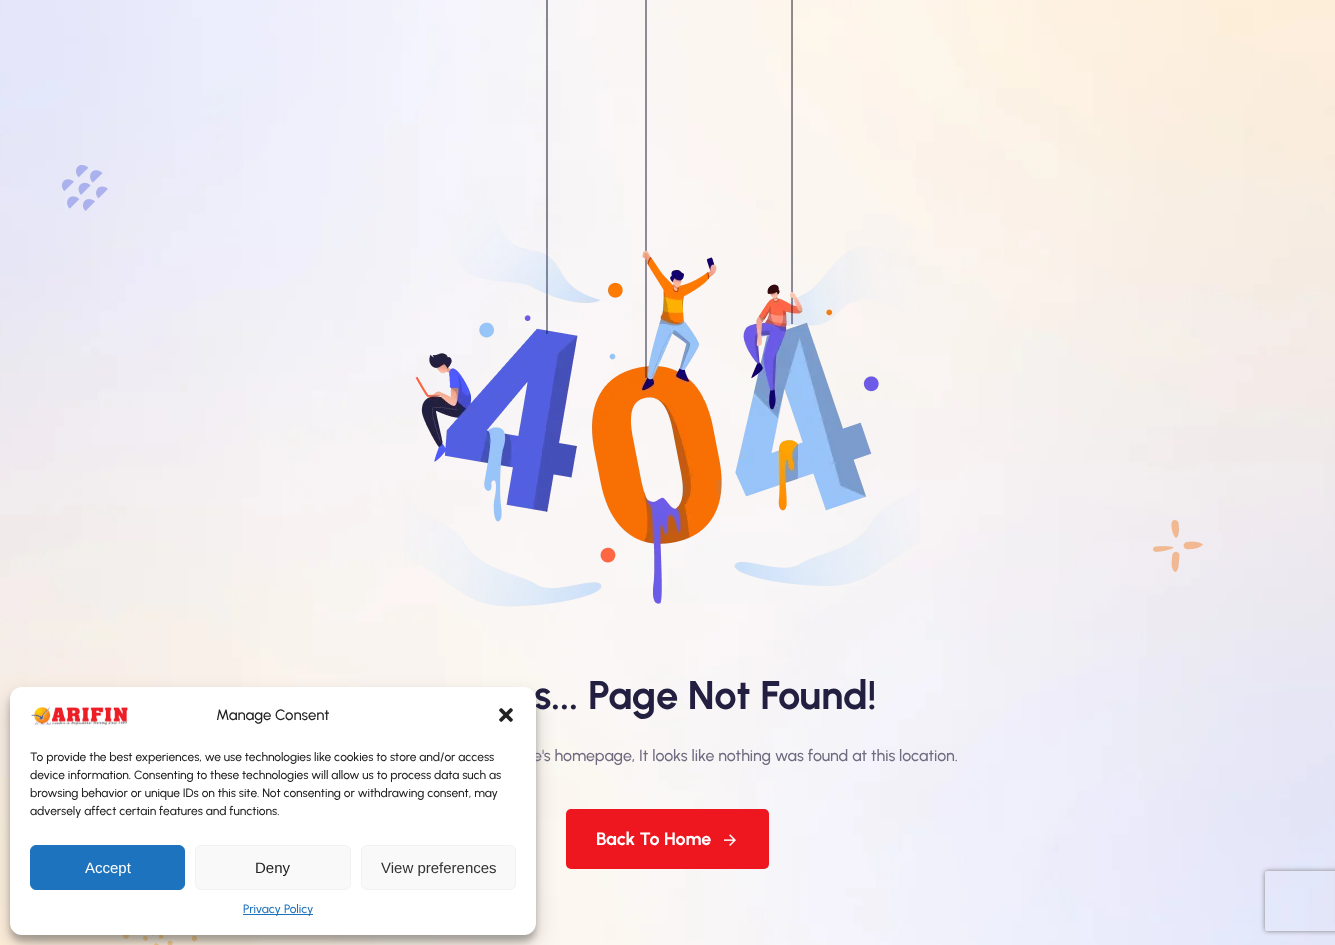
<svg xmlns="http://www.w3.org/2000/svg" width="1335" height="945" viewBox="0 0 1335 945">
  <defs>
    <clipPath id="clip1"><path d="M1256 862H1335V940H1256ZM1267 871H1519C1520 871 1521 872 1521 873V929C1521 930 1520 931 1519 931H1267C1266 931 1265 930 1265 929V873C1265 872 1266 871 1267 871Z" clip-rule="evenodd"/></clipPath>
  </defs>
  <rect width="100%" height="100%" fill="#fff"/>
  <image x="0" y="0" width="1335" height="945" href="img/3.png"/>
  <image x="123" y="935" width="74" height="10" href="img/6.png"/>
  <rect x="10" y="693" width="526" height="248" rx="12" fill="#0000003b" filter="blur(3px)"/>
  <rect x="566" y="809" width="203" height="60" rx="5" fill="#ee161f"/>
  <rect x="10" y="697" width="526" height="248" rx="12" fill="#00000030" filter="blur(10px)"/>
  <image x="62" y="165" width="46" height="46" href="img/4.png"/>
  <image x="1153" y="520" width="50" height="52" href="img/5.png"/>
  <image x="404" y="0" width="516" height="607" href="img/7.png"/>
  <image x="724" y="834" width="12" height="12" href="img/8.png"/>
  <g clip-path="url(#clip1)">
    <rect x="1265" y="871" width="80" height="60" rx="2" fill="#808080" filter="blur(2.5px)"/>
  </g>
  <text x="534" y="709" font-family="Urbanist" font-size="40" font-weight="bold" fill="#231f40">s... Page Not Found!</text>
  <text x="533" y="761" font-family="Urbanist" font-size="16" font-weight="500" fill="#6f6b80">e's homepage, It looks like nothing was found at this location.</text>
  <rect x="10" y="687" width="526" height="248" rx="12" fill="#fff"/>
  <g font-family="Urbanist" font-size="12" font-weight="500" fill="#222">
    <text x="30" y="815">adversely affect certain features and functions.</text>
    <text x="30" y="797">browsing behavior or unique IDs on this site. Not consenting or withdrawing consent, may</text>
    <text x="30" y="779">device information. Consenting to these technologies will allow us to process data such as</text>
    <text x="30" y="761">To provide the best experiences, we use technologies like cookies to store and/or access</text>
  </g>
  <image x="499" y="708" width="14" height="14" href="img/2.png"/>
  <path d="M243 914h70v1H243z" fill="#1e73be"/>
  <text x="243" y="913" font-family="Urbanist" font-size="12" font-weight="500" fill="#1e73be">Privacy Policy</text>
  <rect x="361.5" y="845.5" width="154" height="44" rx="5.5" fill="#f9f9f9" stroke="#f2f2f2"/>
  <text x="381" y="873" font-family="Liberation Sans" font-size="15" fill="#333">View preferences</text>
  <rect x="195.5" y="845.5" width="155" height="44" rx="5.5" fill="#f9f9f9" stroke="#f2f2f2"/>
  <text x="255" y="873" font-family="Liberation Sans" font-size="15" fill="#222">Deny</text>
  <rect x="30.5" y="845.5" width="154" height="44" rx="5.5" fill="#1e73be" stroke="#1e73be"/>
  <text x="85" y="873" font-family="Liberation Sans" font-size="15" fill="#fff">Accept</text>
  <text x="216" y="720" font-family="Urbanist" font-size="15" font-weight="500" fill="#222">Manage Consent</text>
  <image x="31" y="707" width="97" height="19" href="img/1.png"/>
  <text x="596" y="845" font-family="Urbanist" font-size="18" font-weight="bold" fill="#fff">Back To Home</text>
</svg>
